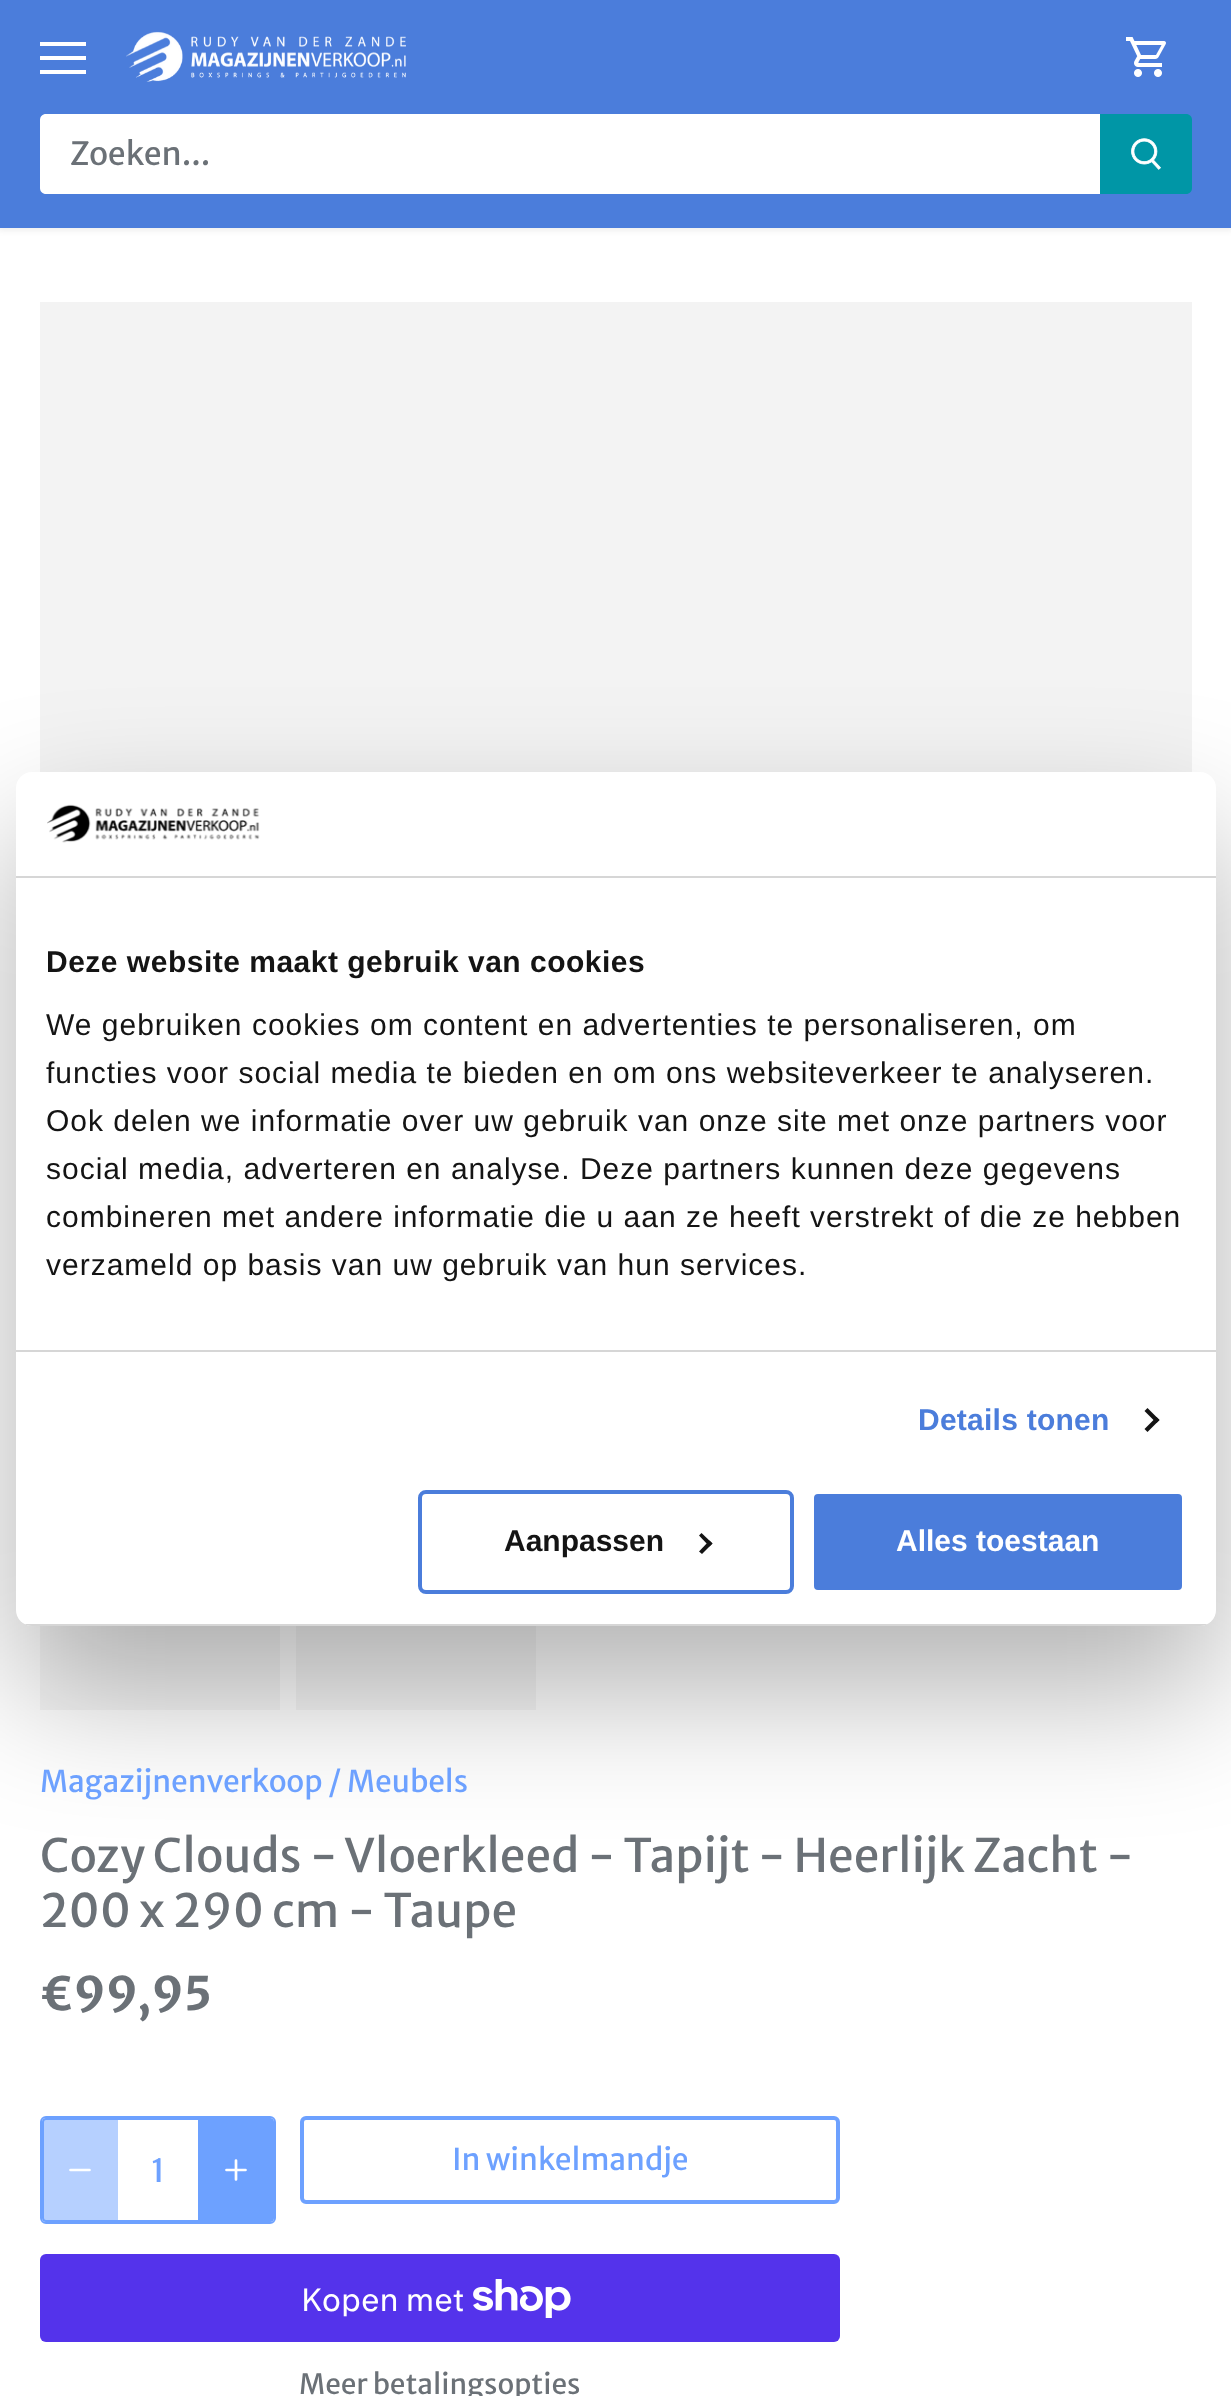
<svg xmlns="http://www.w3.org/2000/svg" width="1231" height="2396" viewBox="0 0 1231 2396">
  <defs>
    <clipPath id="clip1"><rect x="16" y="772" width="1200" height="854" rx="16"/></clipPath>
  </defs>
  <rect width="100%" height="100%" fill="#fff"/>
  <path d="M-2 -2h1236v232H-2z" fill="#00000014" filter="blur(3px)"/>
  <path d="M0 0h1231v228H0z" fill="#4b7ddb"/>
  <path d="M40 42h46v4H40z" fill="#fff"/>
  <path d="M40 56h46v4H40z" fill="#fff"/>
  <path d="M40 70h46v4H40z" fill="#fff"/>
  <image x="126" y="31" width="280" height="51" href="img/1.png"/>
  <image x="1126" y="37" width="40" height="40" href="img/2.png"/>
  <path d="M46 114H1102V194H46C42.5 194 40 191.5 40 188V120C40 116.5 42.5 114 46 114Z" fill="#fff"/>
  <path d="M1100 114H1186C1189.5 114 1192 116.5 1192 120V188C1192 191.5 1189.5 194 1186 194H1100Z" fill="#0096a6"/>
  <image x="1131" y="138" width="30" height="32" href="img/3.png"/>
  <path d="M40 302h1152v470H40z" fill="#f3f3f3"/>
  <path d="M40 1626h240v84H40z" fill="#f6f6f6"/>
  <path d="M296 1626h240v84H296z" fill="#f6f6f6"/>
  <rect x="43" y="2119" width="230" height="102" rx="3" fill="none" stroke="#6da1ff" stroke-width="2"/>
  <rect x="41" y="2117" width="234" height="106" rx="5" fill="none" stroke="#6da1ff" stroke-width="2"/>
  <path d="M48 2118H118V2222H48C44.5 2222 42 2219.5 42 2216V2124C42 2120.5 44.5 2118 48 2118Z" fill="#6da1ff80"/>
  <path d="M70.5 2170H89.5" fill="none" stroke="#fff" stroke-width="2.7" stroke-linecap="round" stroke-linejoin="round"/>
  <path d="M198 2118H268C271.5 2118 274 2120.5 274 2124V2216C274 2219.5 271.5 2222 268 2222H198Z" fill="#6da1ff"/>
  <path d="M236 2160.5V2179.5M226.5 2170H245.5" fill="none" stroke="#fff" stroke-width="2.7" stroke-linecap="round" stroke-linejoin="round"/>
  <rect x="302" y="2118" width="536" height="84" rx="4" fill="none" stroke="#6da1ff" stroke-width="4"/>
  <rect x="40" y="2254" width="800" height="88" rx="6" fill="#5433eb"/>
  <image x="473" y="2279" width="98" height="39" href="img/4.png"/>
  <rect x="16" y="836" width="1200" height="854" rx="16" fill="#0000004d" filter="blur(68px)"/>
  <rect x="16" y="772" width="1200" height="854" rx="16" fill="#fff"/>
  <path d="M16 876h1200v2H16z" fill="#d6d6d6"/>
  <image x="47" y="804" width="213" height="39" href="img/5.png"/>
  <path d="M16 1350h1200v2H16z" fill="#d6d6d6"/>
  <path d="M1147.5 1408L1159.5 1420L1156.5 1423L1144.5 1411Z" fill="#141414"/>
  <path d="M1156.5 1417L1159.5 1420L1147.5 1432L1144.5 1429Z" fill="#141414"/>
  <g clip-path="url(#clip1)">
    <path d="M16 1624h1200v2H16z" fill="#d6d6d6"/>
  </g>
  <rect x="420" y="1492" width="372" height="100" rx="6" fill="none" stroke="#4b7ddb" stroke-width="4"/>
  <path d="M701.5 1533L712.5 1543.5L709.5 1546.5L699 1535.5Z" fill="#141414"/>
  <path d="M709.5 1540.5L712.5 1543.5L702 1554L699 1551.5Z" fill="#141414"/>
  <rect x="812" y="1492" width="372" height="100" rx="6" fill="#4b7ddb" stroke="#fff" stroke-width="4"/>
  <text x="70" y="165" font-family="Merriweather Sans" font-size="32" fill="#6b7177">Zoeken...</text>
  <text x="40" y="1792" font-family="Merriweather Sans" font-size="30" fill="#6da1ff">Magazijnenverkoop / Meubels</text>
  <g font-family="Merriweather Sans" font-size="46" fill="#6b7177">
    <text x="40" y="1872">Cozy Clouds - Vloerkleed - Tapijt - Heerlijk Zacht -</text>
    <text x="40" y="1927">200 x 290 cm - Taupe</text>
  </g>
  <text x="40" y="2010" font-family="Merriweather Sans" font-size="46" font-weight="bold" fill="#6b7177">€99,95</text>
  <text x="151" y="2182" font-family="Merriweather Sans" font-size="32" fill="#6da1ff">1</text>
  <text x="452" y="2170" font-family="Merriweather Sans" font-size="30" fill="#6da1ff">In winkelmandje</text>
  <text x="301" y="2311" font-family="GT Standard" font-size="32" fill="#fff">Kopen met</text>
  <text x="299" y="2394" font-family="Merriweather Sans" font-size="28" fill="#6b7177">Meer betalingsopties</text>
  <text x="46" y="972" font-family="Liberation Sans" font-size="30" font-weight="bold" letter-spacing="0.5" fill="#141414">Deze website maakt gebruik van cookies</text>
  <g font-family="Liberation Sans" font-size="30" letter-spacing="1" fill="#141414">
    <text x="46" y="1035">We gebruiken cookies om content en advertenties te personaliseren, om</text>
    <text x="46" y="1083">functies voor social media te bieden en om ons websiteverkeer te analyseren.</text>
    <text x="46" y="1131">Ook delen we informatie over uw gebruik van onze site met onze partners voor</text>
    <text x="46" y="1179">social media, adverteren en analyse. Deze partners kunnen deze gegevens</text>
    <text x="46" y="1227">combineren met andere informatie die u aan ze heeft verstrekt of die ze hebben</text>
    <text x="46" y="1275">verzameld op basis van uw gebruik van hun services.</text>
  </g>
  <text x="918" y="1430" font-family="Liberation Sans" font-size="30" font-weight="bold" letter-spacing="0.25" fill="#4b7ddb">Details tonen</text>
  <text x="504" y="1551" font-family="Liberation Sans" font-size="30" font-weight="bold" fill="#141414">Aanpassen</text>
  <text x="896" y="1551" font-family="Liberation Sans" font-size="30" font-weight="bold" fill="#fff">Alles toestaan</text>
</svg>
